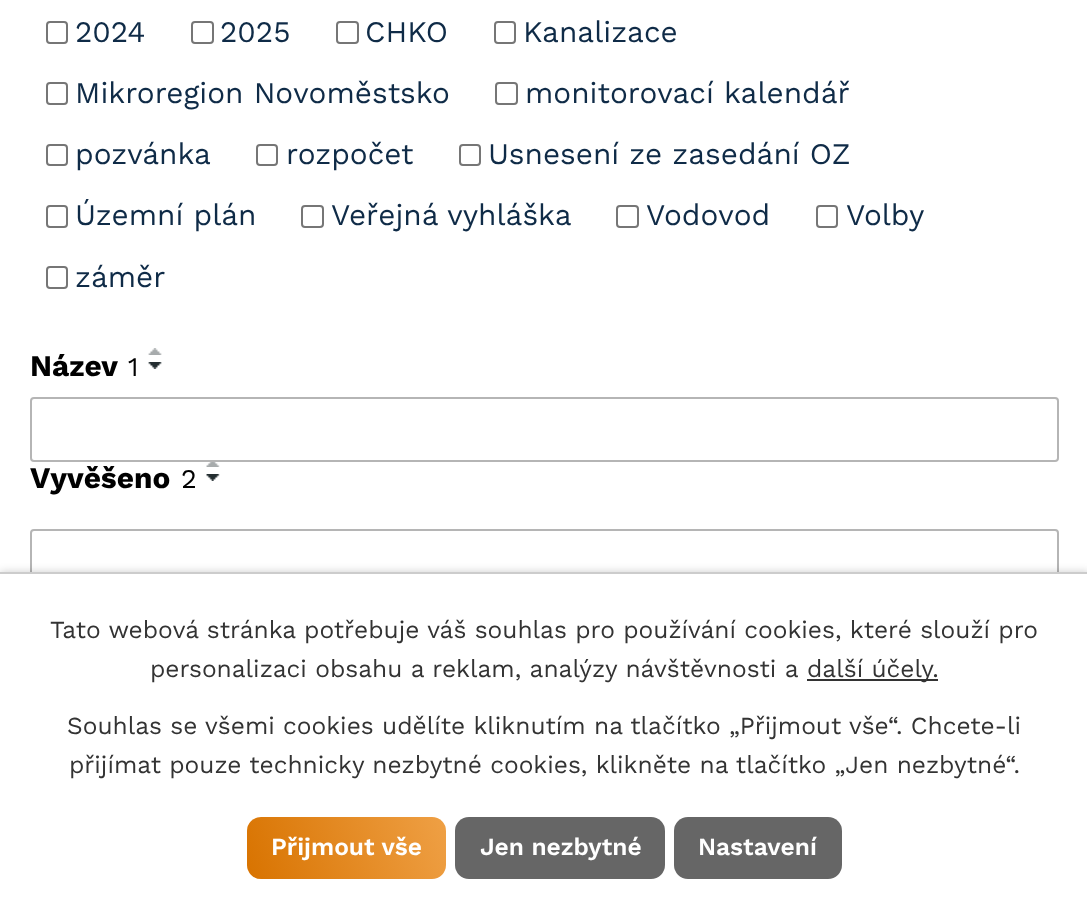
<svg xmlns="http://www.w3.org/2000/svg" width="1087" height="910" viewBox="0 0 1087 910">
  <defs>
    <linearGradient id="g1" gradientUnits="userSpaceOnUse" x1="249" y1="884" x2="444" y2="812"><stop offset="0" stop-color="#d87300"/><stop offset="1" stop-color="#efa045"/></linearGradient>
  </defs>
  <rect width="100%" height="100%" fill="#fff"/>
  <rect x="47" y="22" width="20" height="21" rx="3" fill="none" stroke="#767676" stroke-width="2"/>
  <rect x="192" y="22" width="21" height="21" rx="3" fill="none" stroke="#767676" stroke-width="2"/>
  <rect x="337" y="22" width="21" height="21" rx="3" fill="none" stroke="#767676" stroke-width="2"/>
  <rect x="495" y="22" width="20" height="21" rx="3" fill="none" stroke="#767676" stroke-width="2"/>
  <rect x="47" y="83" width="20" height="21" rx="3" fill="none" stroke="#767676" stroke-width="2"/>
  <rect x="496" y="83" width="21" height="21" rx="3" fill="none" stroke="#767676" stroke-width="2"/>
  <rect x="47" y="145" width="20" height="20" rx="3" fill="none" stroke="#767676" stroke-width="2"/>
  <rect x="257" y="145" width="20" height="20" rx="3" fill="none" stroke="#767676" stroke-width="2"/>
  <rect x="460" y="145" width="20" height="20" rx="3" fill="none" stroke="#767676" stroke-width="2"/>
  <rect x="47" y="206" width="20" height="21" rx="3" fill="none" stroke="#767676" stroke-width="2"/>
  <rect x="302" y="206" width="21" height="21" rx="3" fill="none" stroke="#767676" stroke-width="2"/>
  <rect x="617" y="206" width="21" height="21" rx="3" fill="none" stroke="#767676" stroke-width="2"/>
  <rect x="817" y="206" width="20" height="21" rx="3" fill="none" stroke="#767676" stroke-width="2"/>
  <rect x="47" y="267" width="20" height="21" rx="3" fill="none" stroke="#767676" stroke-width="2"/>
  <image x="148" y="348" width="14" height="7" href="img/1.png"/>
  <image x="148" y="362" width="14" height="7" href="img/2.png"/>
  <image x="206" y="462" width="14" height="5" href="img/3.png"/>
  <image x="206" y="474" width="14" height="7" href="img/4.png"/>
  <rect x="31" y="398" width="1027" height="63" rx="3" fill="none" stroke="#b5b5b5" stroke-width="2"/>
  <rect x="31" y="530" width="1027" height="64" rx="3" fill="none" stroke="#b5b5b5" stroke-width="2"/>
  <path d="M0 572h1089v338H0z" fill="#00000033" filter="blur(4.5px)"/>
  <path d="M0 574h1087v336H0z" fill="#fff"/>
  <path d="M0 572h1087v2H0z" fill="#ccc"/>
  <path d="M807 679h131v2H807z" fill="#333"/>
  <rect x="247" y="817" width="199" height="62" rx="14" fill="url(#g1)"/>
  <rect x="455" y="817" width="210" height="62" rx="14" fill="#666"/>
  <rect x="674" y="817" width="168" height="62" rx="14" fill="#666"/>
  <g font-family="Work Sans" font-size="29.75" fill="#0f2b47">
    <text x="75" y="42">2024</text>
    <text x="220" y="42">2025</text>
    <text x="365" y="42">CHKO</text>
    <text x="523" y="42">Kanalizace</text>
    <text x="75" y="103">Mikroregion Novoměstsko</text>
    <text x="525" y="103">monitorovací kalendář</text>
    <text x="75" y="164">pozvánka</text>
    <text x="286" y="164">rozpočet</text>
    <text x="488" y="164">Usnesení ze zasedání OZ</text>
    <text x="75" y="225">Územní plán</text>
    <text x="331" y="225">Veřejná vyhláška</text>
    <text x="646" y="225">Vodovod</text>
    <text x="846" y="225">Volby</text>
    <text x="75" y="287">záměr</text>
  </g>
  <text x="30" y="376" font-family="Work Sans" font-size="29.75" font-weight="bold" fill="#000">Název</text>
  <text x="128" y="376" font-family="Work Sans" font-size="27" fill="#000">1</text>
  <text x="30" y="488" font-family="Work Sans" font-size="29.75" font-weight="bold" fill="#000">Vyvěšeno</text>
  <text x="181" y="488" font-family="Work Sans" font-size="27" fill="#000">2</text>
  <g font-family="Work Sans" font-size="24.5" fill="#333">
    <text x="50" y="638">Tato webová stránka potřebuje váš souhlas pro používání cookies, které slouží pro</text>
    <text x="150" y="677">personalizaci obsahu a reklam, analýzy návštěvnosti a</text>
    <text x="807" y="677">další účely.</text>
    <text x="67" y="734">Souhlas se všemi cookies udělíte kliknutím na tlačítko „Přijmout vše“. Chcete-li</text>
    <text x="69" y="773">přijímat pouze technicky nezbytné cookies, klikněte na tlačítko „Jen nezbytné“.</text>
  </g>
  <g font-family="Work Sans" font-size="24.5" font-weight="600" fill="#fff">
    <text x="271" y="855">Přijmout vše</text>
    <text x="480" y="855">Jen nezbytné</text>
    <text x="698" y="855">Nastavení</text>
  </g>
</svg>
